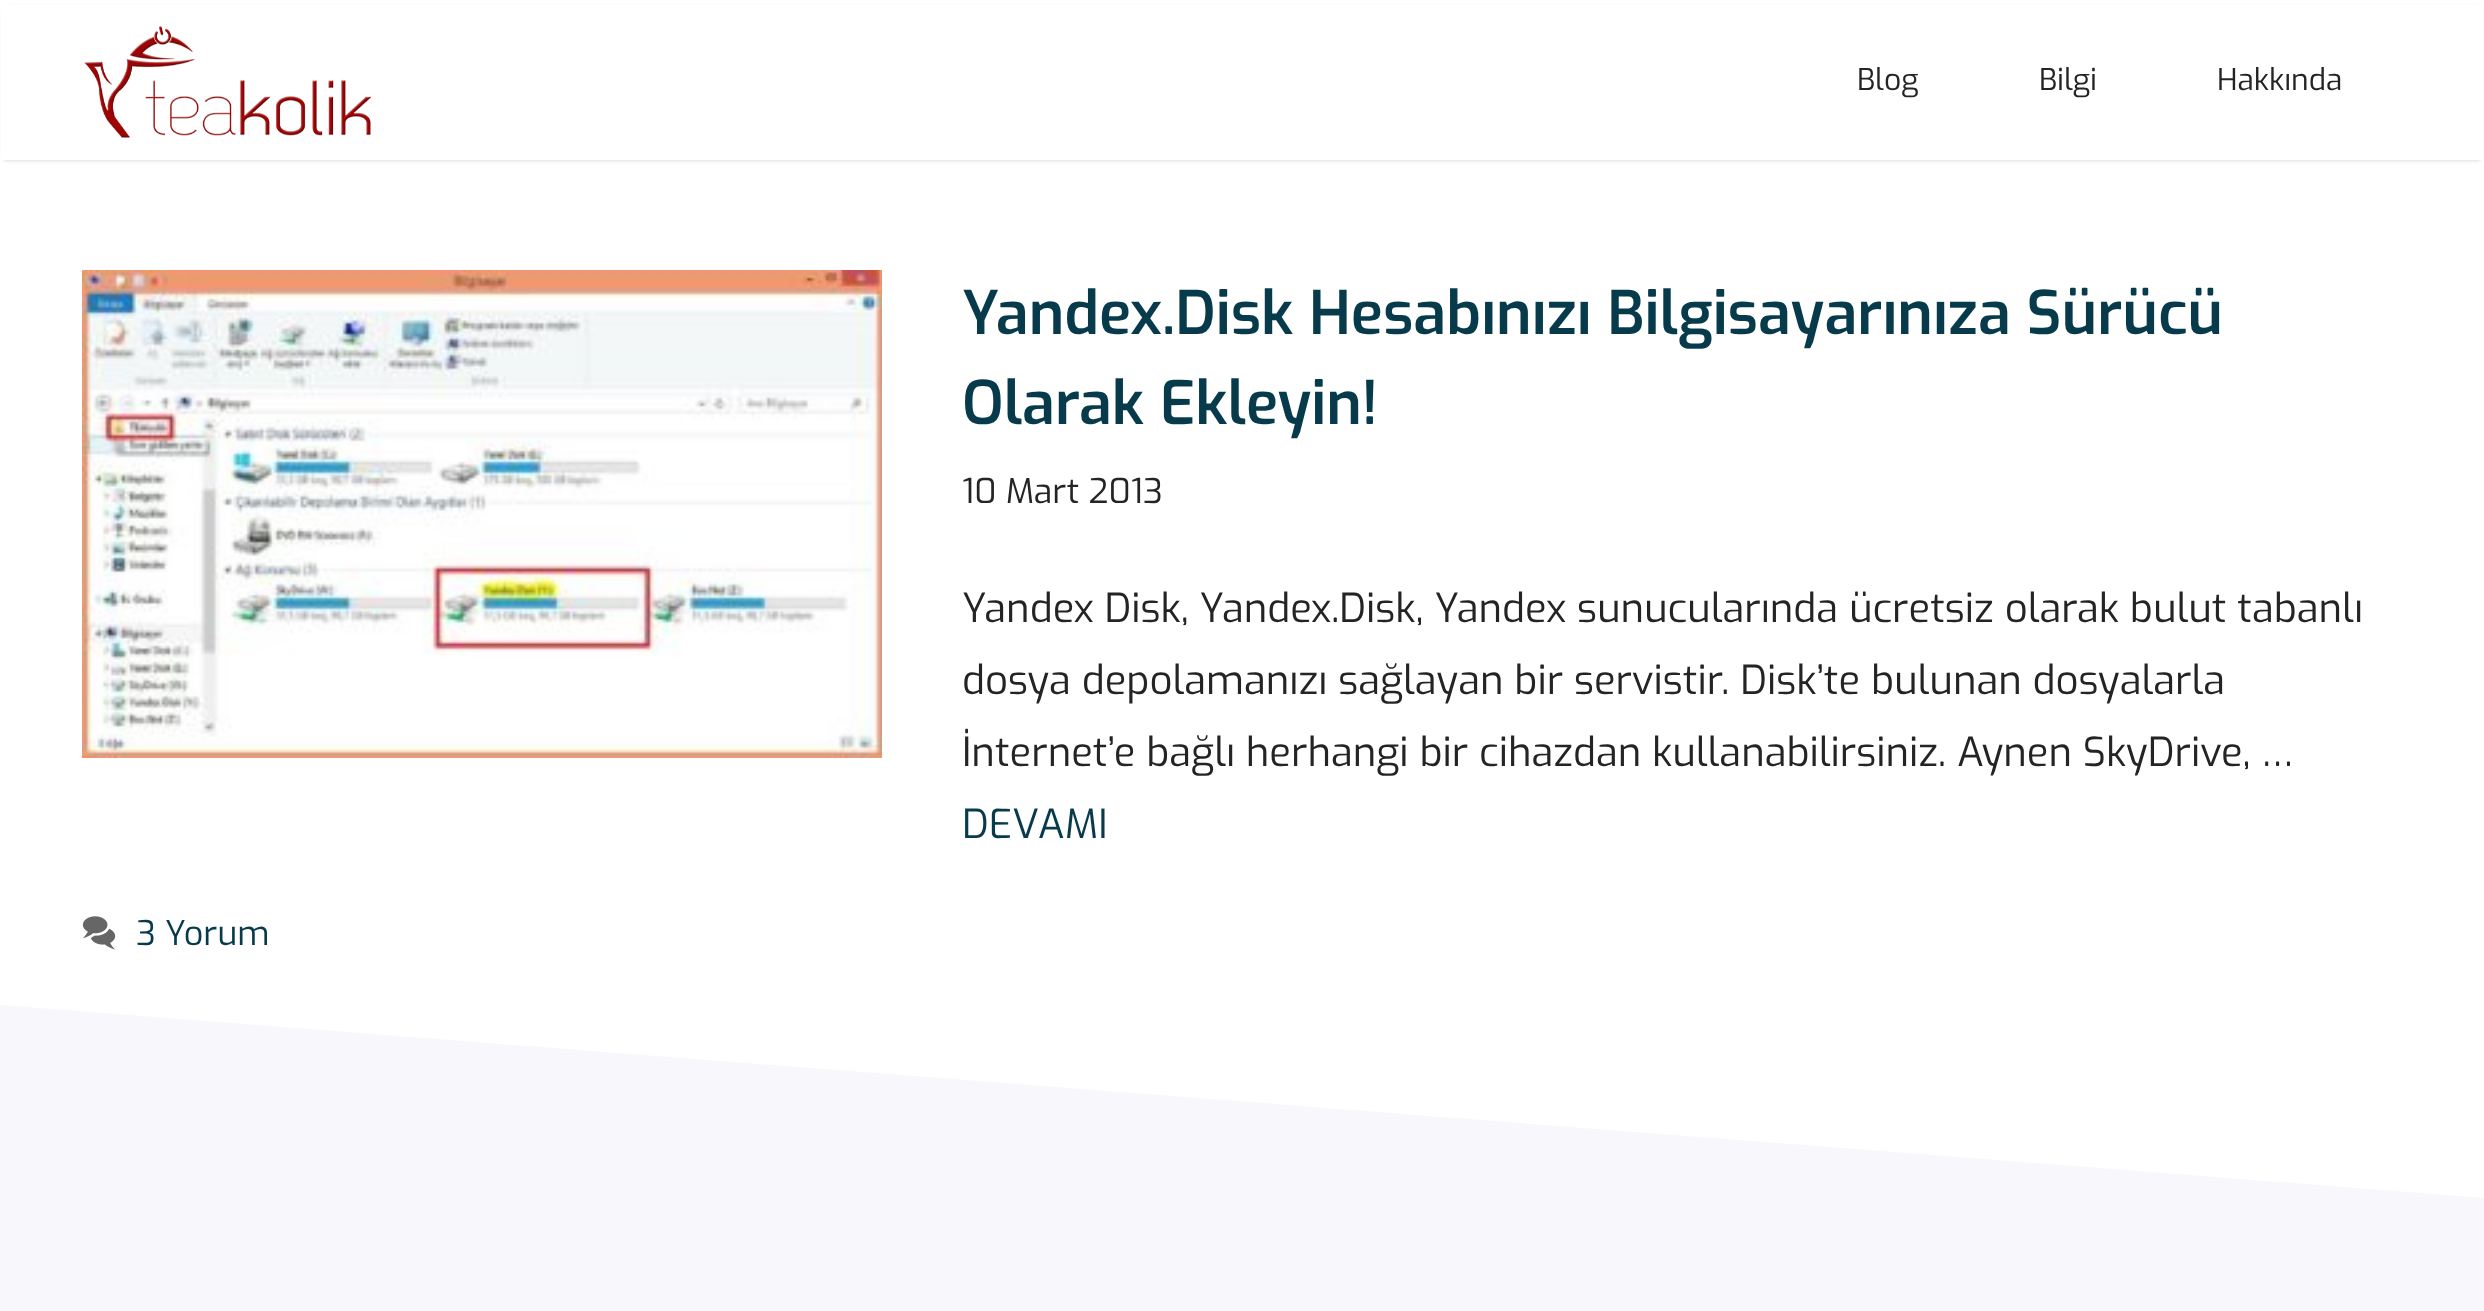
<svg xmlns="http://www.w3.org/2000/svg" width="2484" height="1311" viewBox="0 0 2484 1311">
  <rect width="100%" height="100%" fill="#fff"/>
  <path d="M4 8h2476v152H4z" fill="#00000033" filter="blur(2px)"/>
  <path d="M1 5h2482v155H1z" fill="#fff"/>
  <image x="84" y="26" width="287" height="112" href="img/1.png"/>
  <image x="82" y="270" width="800" height="488" href="img/2.png"/>
  <image x="82" y="916" width="34" height="34" href="img/3.png"/>
  <path d="M0 1005h2484v306H0z" fill="#f7f7fc"/>
  <path d="M-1 998H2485V1198L-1 1005Z" fill="#fff"/>
  <g font-family="Exo" font-size="30" fill="#242424">
    <text x="1857" y="90">Blog</text>
    <text x="2039" y="90">Bilgi</text>
    <text x="2217" y="90">Hakkında</text>
  </g>
  <g font-family="Exo" font-size="60" font-weight="600" fill="#073b4c">
    <text x="962" y="334">Yandex.Disk Hesabınızı Bilgisayarınıza Sürücü</text>
    <text x="962" y="424">Olarak Ekleyin!</text>
  </g>
  <text x="962" y="503" font-family="Exo" font-size="34" fill="#242424">10 Mart 2013</text>
  <g font-family="Exo" font-size="40" fill="#242424">
    <text x="962" y="622">Yandex Disk, Yandex.Disk, Yandex sunucularında ücretsiz olarak bulut tabanlı</text>
    <text x="962" y="694">dosya depolamanızı sağlayan bir servistir. Disk’te bulunan dosyalarla</text>
    <text x="962" y="766">İnternet’e bağlı herhangi bir cihazdan kullanabilirsiniz. Aynen SkyDrive, …</text>
  </g>
  <text x="962" y="838" font-family="Exo" font-size="40" fill="#073b4c">DEVAMI</text>
  <text x="136" y="945" font-family="Exo" font-size="34" fill="#073b4c">3 Yorum</text>
</svg>
